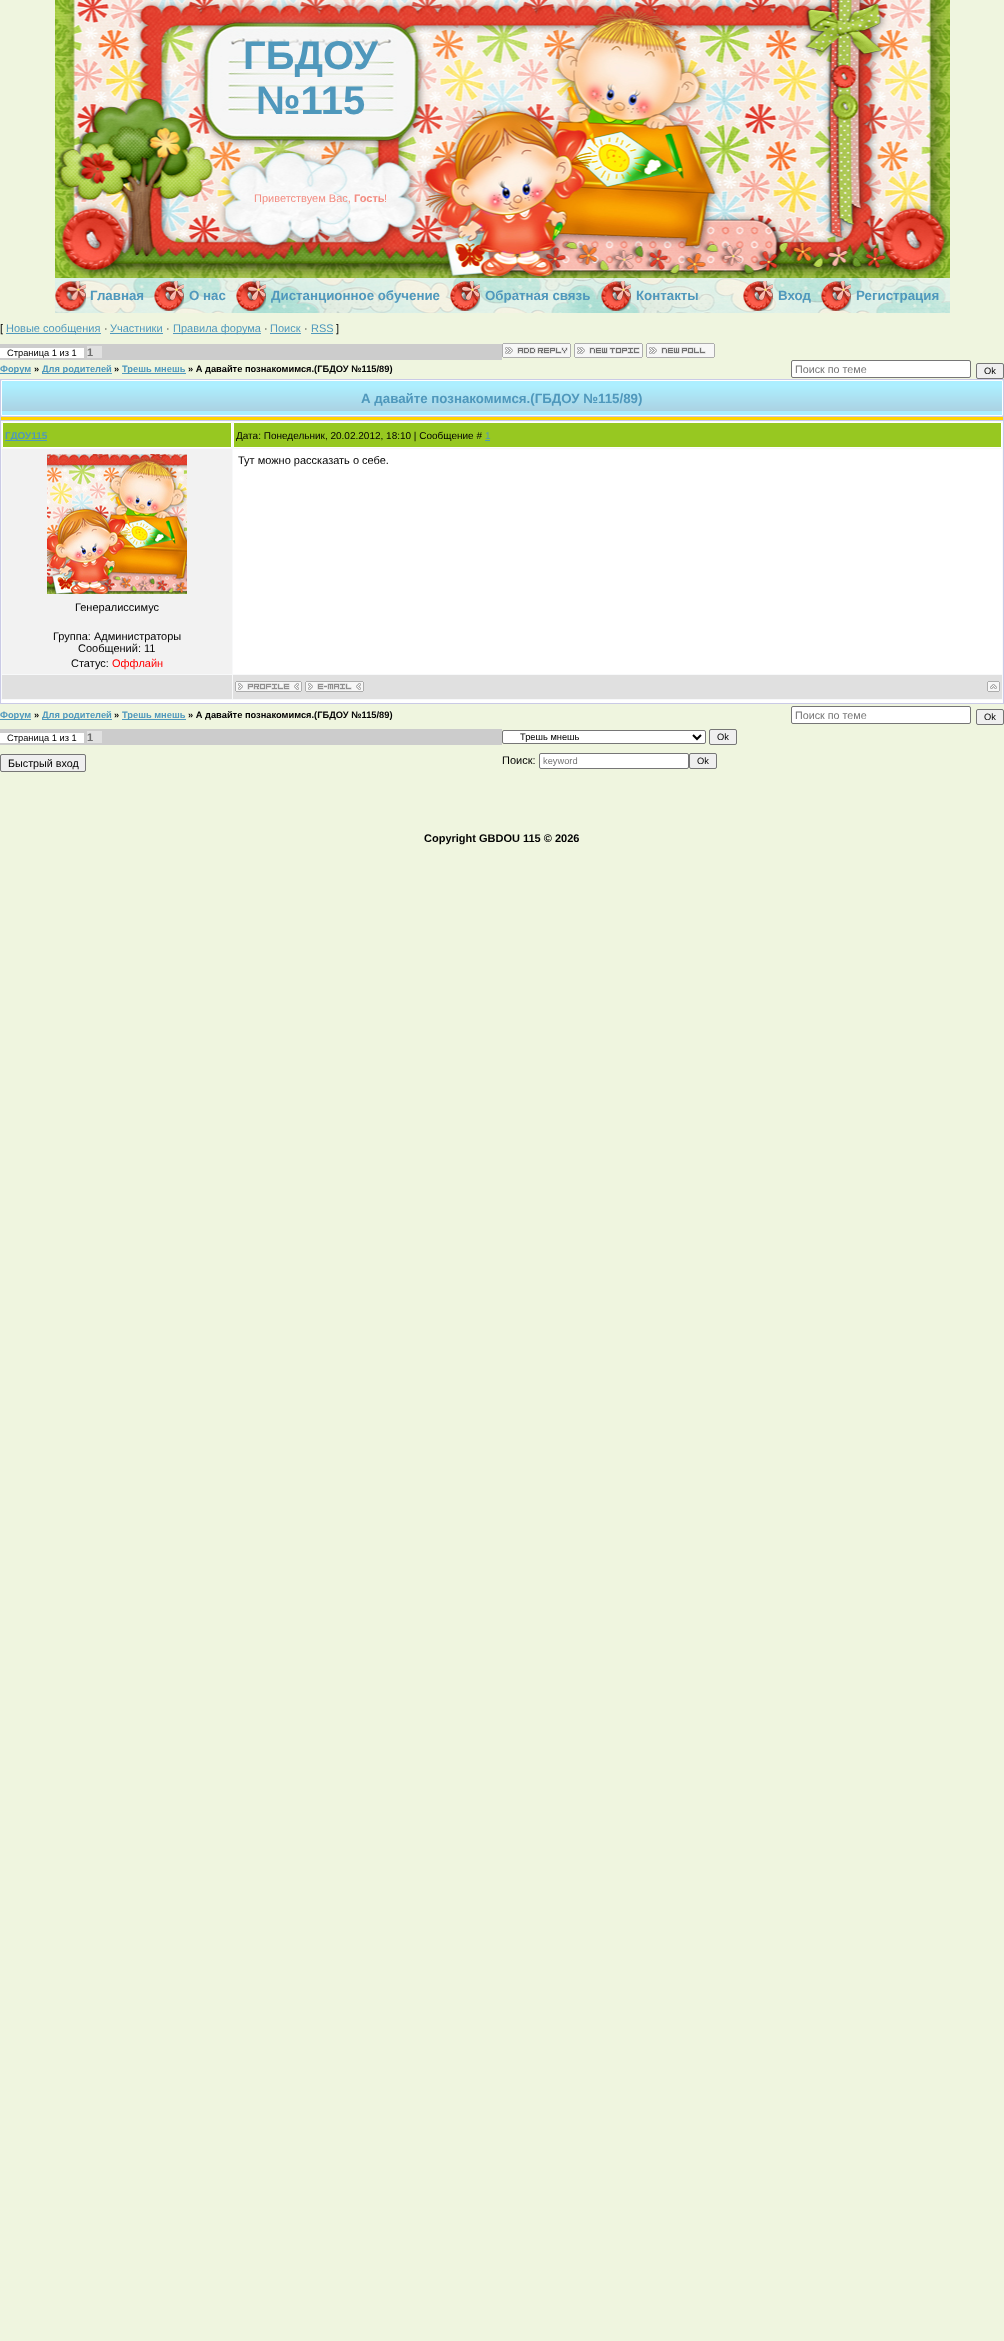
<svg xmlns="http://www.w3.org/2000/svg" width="1004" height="2341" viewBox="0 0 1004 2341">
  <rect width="100%" height="100%" fill="#eff5df"/>
  <image x="55" y="0" width="895" height="278" href="img/1.png"/>
  <image x="55" y="278" width="895" height="35" href="img/2.png"/>
  <image x="55" y="281" width="31" height="30" href="img/3.png"/>
  <image x="154" y="281" width="30" height="30" href="img/4.png"/>
  <image x="236" y="281" width="30" height="30" href="img/5.png"/>
  <image x="450" y="281" width="30" height="30" href="img/6.png"/>
  <image x="601" y="281" width="30" height="30" href="img/7.png"/>
  <image x="743" y="281" width="30" height="30" href="img/8.png"/>
  <image x="821" y="281" width="30" height="30" href="img/9.png"/>
  <path d="M6 333h95v1H6z" fill="#4f98bc"/>
  <path d="M110 333h53v1H110z" fill="#4f98bc"/>
  <path d="M173 333h88v1H173z" fill="#4f98bc"/>
  <path d="M270 333h31v1H270z" fill="#4f98bc"/>
  <path d="M311 333h22v1H311z" fill="#4f98bc"/>
  <path d="M0 344h502v16H0z" fill="#ccc"/>
  <path d="M0 348h84v10H0z" fill="#fff"/>
  <path d="M87 346h15v12H87z" fill="#e0e0e0"/>
  <image x="502" y="343" width="69" height="15" href="img/10.png"/>
  <image x="574" y="343" width="69" height="15" href="img/11.png"/>
  <image x="646" y="343" width="69" height="15" href="img/12.png"/>
  <path d="M0 373h31v1H0z" fill="#4f98bc"/>
  <path d="M42 373h70v1H42z" fill="#4f98bc"/>
  <path d="M122 373h64v1H122z" fill="#4f98bc"/>
  <rect x="791.5" y="360.5" width="179" height="17" rx="1.5" fill="#fff" stroke="#767676"/>
  <rect x="976.5" y="363.5" width="27" height="15" rx="1.5" fill="#efefef" stroke="#767676"/>
  <path d="M0 379h1004v325H0z" fill="#cacae6"/>
  <image x="2" y="381" width="1000" height="34" href="img/13.png"/>
  <path d="M1.5 380.5h1001v35H1.5z" fill="none" stroke="#fff"/>
  <path d="M1 417h1002v3H1z" fill="#ffd500"/>
  <path d="M1 421h1002v279H1z" fill="#f8f9fa"/>
  <path d="M1 700h1002v3H1z" fill="#fff"/>
  <path d="M2.5 422.5h229v25H2.5z" fill="#97c821" stroke="#fff"/>
  <path d="M5 440h42v1H5z" fill="#4f98bc"/>
  <path d="M233.5 422.5h768v25H233.5z" fill="#97c821" stroke="#fff"/>
  <path d="M485 440h5v1H485z" fill="#4f98bc"/>
  <path d="M233 449h769v225H233z" fill="#fff"/>
  <path d="M2 449h230v225H2z" fill="#f2f2f2"/>
  <image x="47" y="454" width="140" height="140" href="img/14.png"/>
  <path d="M2 675h230v24H2z" fill="#e0e0e0"/>
  <path d="M233 675h769v24H233z" fill="#e0e0e0"/>
  <image x="235" y="681" width="67" height="11" href="img/15.png"/>
  <image x="305" y="681" width="59" height="11" href="img/16.png"/>
  <image x="987" y="681" width="13" height="11" href="img/17.png"/>
  <path d="M0 719h31v1H0z" fill="#4f98bc"/>
  <path d="M42 719h70v1H42z" fill="#4f98bc"/>
  <path d="M122 719h64v1H122z" fill="#4f98bc"/>
  <rect x="791.5" y="706.5" width="179" height="17" rx="1.5" fill="#fff" stroke="#767676"/>
  <rect x="976.5" y="709.5" width="27" height="15" rx="1.5" fill="#efefef" stroke="#767676"/>
  <path d="M0 729h502v16H0z" fill="#ccc"/>
  <path d="M0 733h84v10H0z" fill="#fff"/>
  <path d="M87 731h15v12H87z" fill="#e0e0e0"/>
  <rect x="502.5" y="730.5" width="203" height="13" rx="1.5" fill="#fff" stroke="#767676"/>
  <path d="M693 735L697 739L701 735" fill="none" stroke="#000" stroke-width="2"/>
  <rect x="709.5" y="729.5" width="27" height="15" rx="1.5" fill="#efefef" stroke="#767676"/>
  <rect x="0.5" y="754.5" width="85" height="17" rx="1.5" fill="#efefef" stroke="#767676"/>
  <rect x="539.5" y="753.5" width="149" height="15" rx="1.5" fill="#fff" stroke="#767676"/>
  <rect x="689.5" y="753.5" width="27" height="15" rx="1.5" fill="#efefef" stroke="#767676"/>
  <g font-family="Liberation Sans" font-size="40" font-weight="bold" fill="#4f98bc">
    <text x="243" y="69">ГБДОУ</text>
    <text x="256" y="114">№115</text>
  </g>
  <text x="254" y="202" font-family="Liberation Sans" font-size="11" fill="#f28c81">Приветствуем Вас,</text>
  <text x="354" y="202" font-family="Liberation Sans" font-size="11" font-weight="bold" fill="#f28c81">Гость</text>
  <text x="384" y="202" font-family="Liberation Sans" font-size="11" fill="#f28c81">!</text>
  <g font-family="Liberation Sans" font-size="13.3" font-weight="bold" fill="#4f98bc">
    <text x="90" y="300">Главная</text>
    <text x="189" y="300">О нас</text>
    <text x="271" y="300">Дистанционное обучение</text>
    <text x="485" y="300">Обратная связь</text>
    <text x="636" y="300">Контакты</text>
    <text x="778" y="300">Вход</text>
    <text x="856" y="300">Регистрация</text>
  </g>
  <text x="0" y="332" font-family="Liberation Sans" font-size="11" fill="#000">[</text>
  <text x="6" y="332" font-family="Liberation Sans" font-size="11" fill="#4f98bc">Новые сообщения</text>
  <text x="104" y="332" font-family="Liberation Sans" font-size="11" fill="#000">·</text>
  <text x="110" y="332" font-family="Liberation Sans" font-size="11" fill="#4f98bc">Участники</text>
  <text x="166" y="332" font-family="Liberation Sans" font-size="11" fill="#000">·</text>
  <text x="173" y="332" font-family="Liberation Sans" font-size="11" fill="#4f98bc">Правила форума</text>
  <text x="264" y="332" font-family="Liberation Sans" font-size="11" fill="#000">·</text>
  <text x="270" y="332" font-family="Liberation Sans" font-size="11" fill="#4f98bc">Поиск</text>
  <text x="304" y="332" font-family="Liberation Sans" font-size="11" fill="#000">·</text>
  <text x="311" y="332" font-family="Liberation Sans" font-size="11" fill="#4f98bc">RSS</text>
  <text x="336" y="332" font-family="Liberation Sans" font-size="11" fill="#000">]</text>
  <text x="7" y="356" font-family="Liberation Sans" font-size="9.3" fill="#000">Страница 1 из 1</text>
  <text x="87" y="356" font-family="Liberation Sans" font-size="11" font-weight="bold" fill="#6e6e6e">1</text>
  <text x="0" y="372" font-family="Liberation Sans" font-size="9.3" font-weight="bold" fill="#4f98bc">Форум</text>
  <text x="34" y="372" font-family="Liberation Sans" font-size="9.3" font-weight="bold" fill="#000">»</text>
  <text x="42" y="372" font-family="Liberation Sans" font-size="9.3" font-weight="bold" fill="#4f98bc">Для родителей</text>
  <text x="114" y="372" font-family="Liberation Sans" font-size="9.3" font-weight="bold" fill="#000">»</text>
  <text x="122" y="372" font-family="Liberation Sans" font-size="9.3" font-weight="bold" fill="#4f98bc">Трешь мнешь</text>
  <text x="188" y="372" font-family="Liberation Sans" font-size="9.3" font-weight="bold" fill="#000">» А давайте познакомимся.(ГБДОУ №115/89)</text>
  <text x="795" y="373" font-family="Liberation Sans" font-size="10.75" fill="#757575">Поиск по теме</text>
  <text x="984" y="374" font-family="Liberation Sans" font-size="9.3" fill="#000">Ok</text>
  <text x="361" y="403" font-family="Liberation Sans" font-size="13.3" font-weight="bold" fill="#4f98bc">А давайте познакомимся.(ГБДОУ №115/89)</text>
  <text x="5" y="439" font-family="Liberation Sans" font-size="10" font-weight="bold" fill="#4f98bc">ГДОУ115</text>
  <text x="236" y="439" font-family="Liberation Sans" font-size="10" fill="#000">Дата: Понедельник, 20.02.2012, 18:10 | Сообщение #</text>
  <text x="485" y="439" font-family="Liberation Sans" font-size="10" fill="#4f98bc">1</text>
  <g font-family="Liberation Sans" font-size="11" fill="#000">
    <text x="238" y="464">Тут можно рассказать о себе.</text>
    <text x="75" y="611">Генералиссимус</text>
    <text x="53" y="640">Группа: Администраторы</text>
    <text x="78" y="652">Сообщений: 11</text>
    <text x="71" y="667">Статус:</text>
  </g>
  <text x="112" y="667" font-family="Liberation Sans" font-size="11" fill="#f00">Оффлайн</text>
  <text x="0" y="718" font-family="Liberation Sans" font-size="9.3" font-weight="bold" fill="#4f98bc">Форум</text>
  <text x="34" y="718" font-family="Liberation Sans" font-size="9.3" font-weight="bold" fill="#000">»</text>
  <text x="42" y="718" font-family="Liberation Sans" font-size="9.3" font-weight="bold" fill="#4f98bc">Для родителей</text>
  <text x="114" y="718" font-family="Liberation Sans" font-size="9.3" font-weight="bold" fill="#000">»</text>
  <text x="122" y="718" font-family="Liberation Sans" font-size="9.3" font-weight="bold" fill="#4f98bc">Трешь мнешь</text>
  <text x="188" y="718" font-family="Liberation Sans" font-size="9.3" font-weight="bold" fill="#000">» А давайте познакомимся.(ГБДОУ №115/89)</text>
  <text x="795" y="719" font-family="Liberation Sans" font-size="10.75" fill="#757575">Поиск по теме</text>
  <g font-family="Liberation Sans" font-size="9.3" fill="#000">
    <text x="984" y="720">Ok</text>
    <text x="7" y="741">Страница 1 из 1</text>
  </g>
  <text x="87" y="741" font-family="Liberation Sans" font-size="11" font-weight="bold" fill="#6e6e6e">1</text>
  <g font-family="Liberation Sans" font-size="9.3" fill="#000">
    <text x="520" y="740">Трешь мнешь</text>
    <text x="717" y="740">Ok</text>
  </g>
  <text x="8" y="767" font-family="Liberation Sans" font-size="10.75" fill="#000">Быстрый вход</text>
  <text x="502" y="764" font-family="Liberation Sans" font-size="11" fill="#000">Поиск:</text>
  <text x="543" y="764" font-family="Liberation Sans" font-size="9.3" fill="#757575">keyword</text>
  <text x="697" y="764" font-family="Liberation Sans" font-size="9.3" fill="#000">Ok</text>
  <text x="424" y="842" font-family="Liberation Sans" font-size="11" font-weight="bold" fill="#000">Copyright GBDOU 115 © 2026</text>
</svg>
